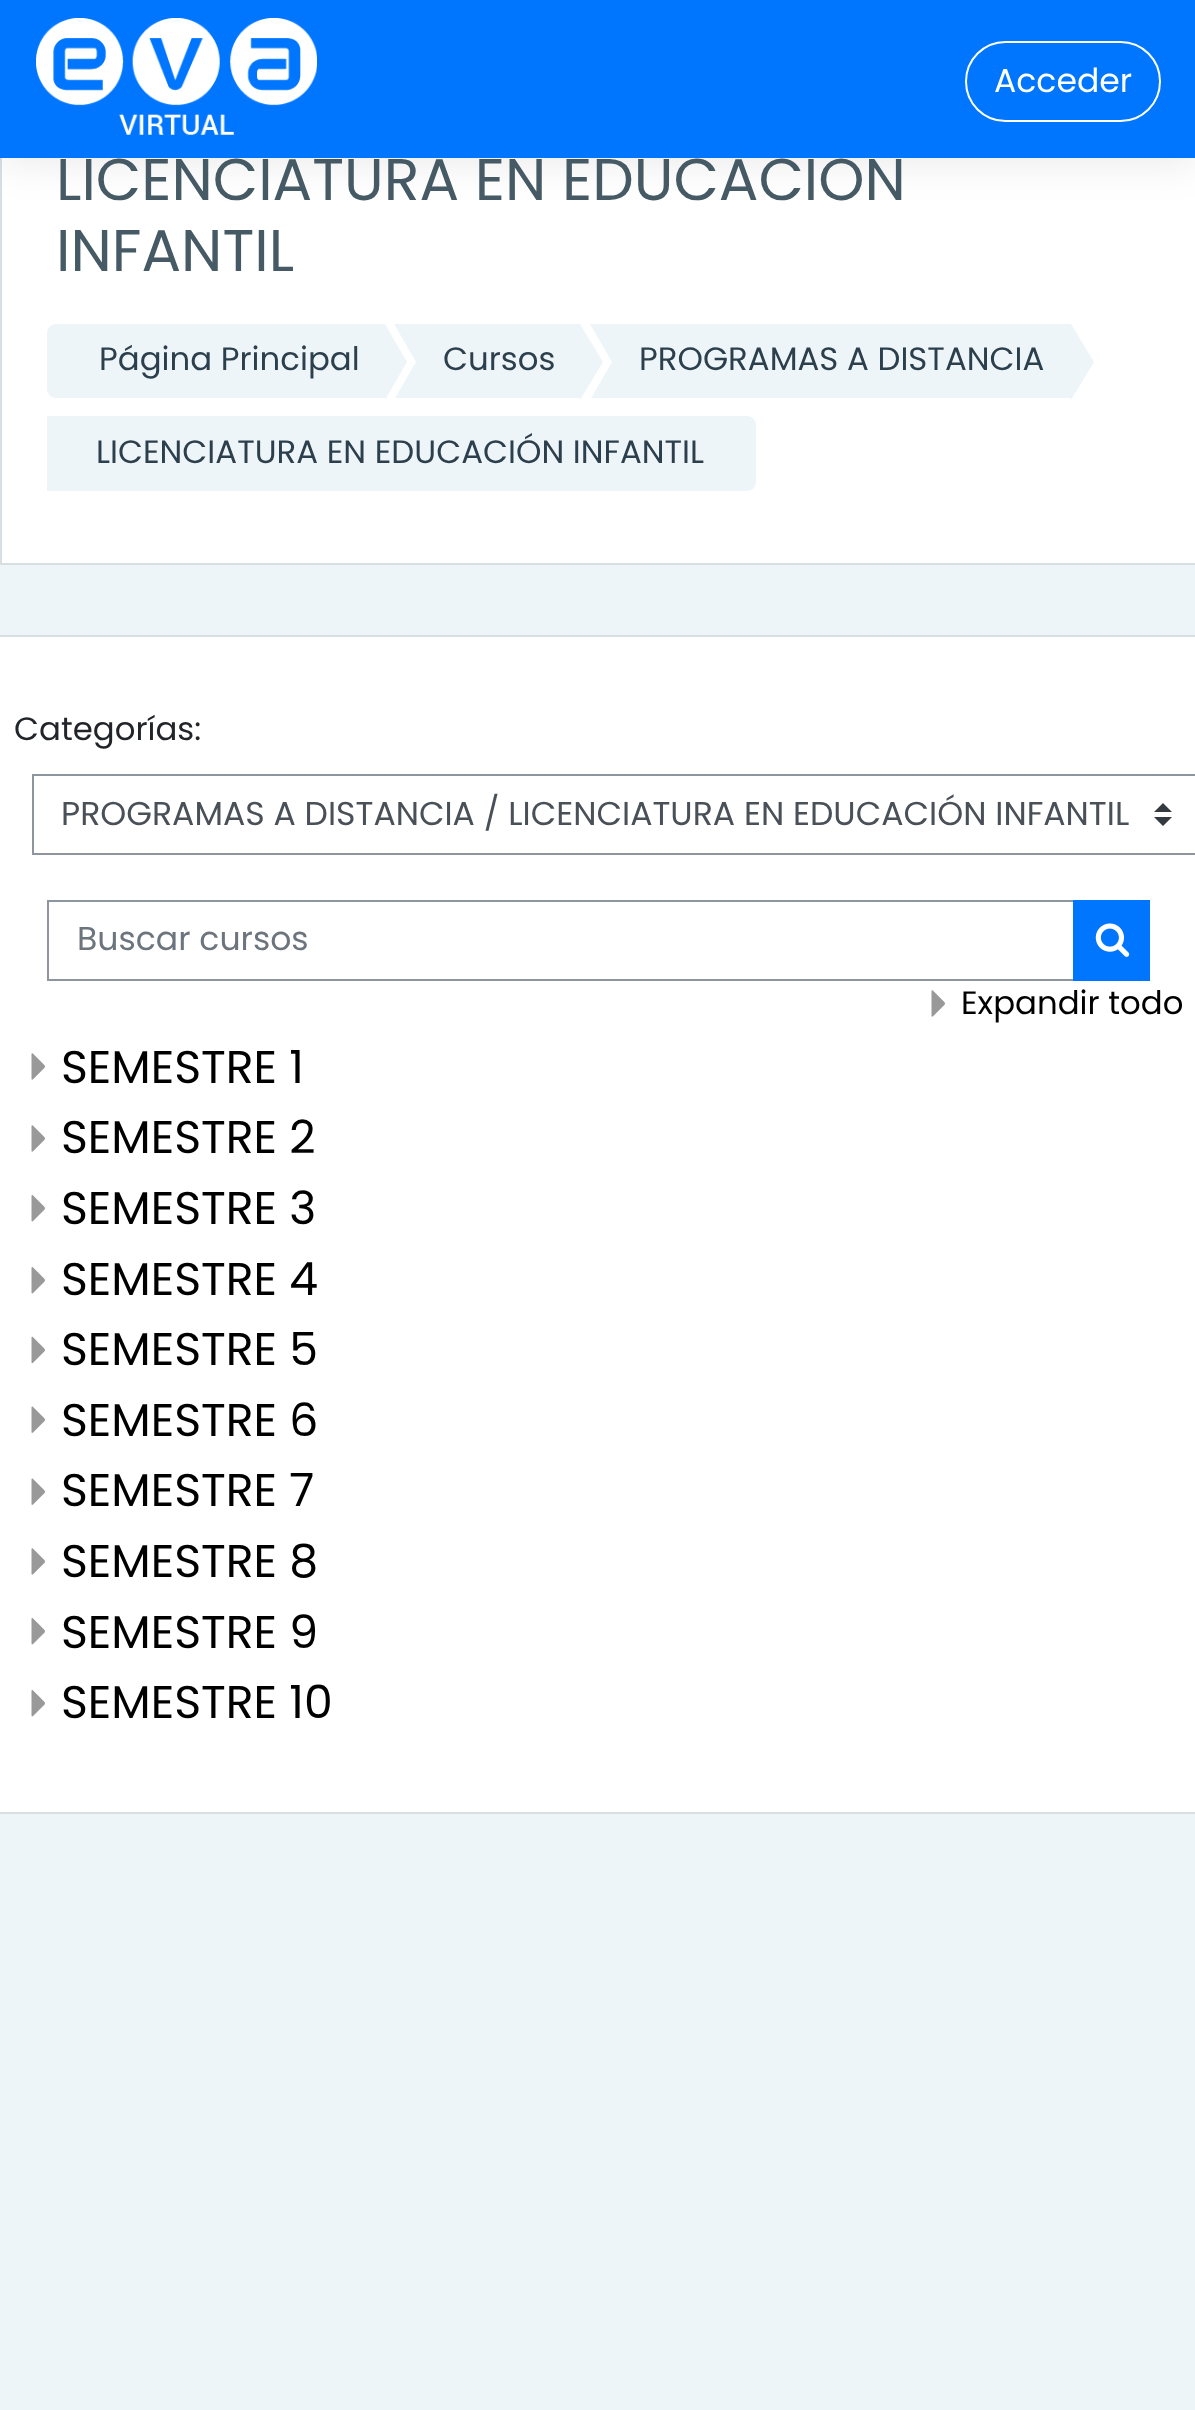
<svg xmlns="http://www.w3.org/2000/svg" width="1195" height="2410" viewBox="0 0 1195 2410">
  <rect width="100%" height="100%" fill="#eef5f9"/>
  <path d="M2 158h1193v405H2z" fill="#fff"/>
  <path d="M1 91h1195v473H1z" fill="none" stroke="#d7dfe3" stroke-width="2"/>
  <path d="M0 0h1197v158H0z" fill="#0000001a" filter="blur(22.5px)"/>
  <path d="M56 324H385V398H56C51 398 47 394 47 389V333C47 328 51 324 56 324Z" fill="#eef5f9"/>
  <path d="M394 324h187v74H394z" fill="#eef5f9"/>
  <path d="M394 400V324L416 362Z" fill="#fff"/>
  <path d="M385 400V324L407 362Z" fill="#eef5f9"/>
  <path d="M590 324h481v74H590z" fill="#eef5f9"/>
  <path d="M590 400V324L612 362Z" fill="#fff"/>
  <path d="M580 400V324L603 362Z" fill="#eef5f9"/>
  <path d="M1071 400V324L1094 362Z" fill="#eef5f9"/>
  <path d="M47 416H747C752 416 756 420 756 425V482C756 487 752 491 747 491H47Z" fill="#eef5f9"/>
  <path d="M-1 636h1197v1177H-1z" fill="#fff" stroke="#d7dfe3" stroke-width="2"/>
  <path d="M1163 803L1154 812H1172ZM1163 826L1154 817H1172Z" fill="#343a40"/>
  <path d="M33 775h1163v79H33z" fill="none" stroke="#8f959e" stroke-width="2"/>
  <path d="M48 901h1027v79H48z" fill="none" stroke="#8f959e" stroke-width="2"/>
  <path d="M1073 900h77v81H1073z" fill="#0076ff"/>
  <image x="1095" y="923" width="35" height="34" href="img/2.png"/>
  <image x="931" y="990" width="14" height="27" href="img/3.png"/>
  <image x="31" y="1053" width="14" height="27" href="img/3.png"/>
  <image x="31" y="1125" width="14" height="27" href="img/3.png"/>
  <image x="31" y="1195" width="14" height="27" href="img/4.png"/>
  <image x="31" y="1267" width="14" height="27" href="img/5.png"/>
  <image x="31" y="1336" width="14" height="28" href="img/6.png"/>
  <image x="31" y="1406" width="14" height="27" href="img/7.png"/>
  <image x="31" y="1478" width="14" height="27" href="img/7.png"/>
  <image x="31" y="1548" width="14" height="27" href="img/3.png"/>
  <image x="31" y="1618" width="14" height="27" href="img/4.png"/>
  <image x="31" y="1690" width="14" height="27" href="img/4.png"/>
  <text x="56" y="200" font-family="Poppins" font-size="58.8" fill="#455a64">LICENCIATURA EN EDUCACIÓN</text>
  <path d="M0 0h1195v158H0z" fill="#0076ff"/>
  <rect x="966" y="42" width="194" height="79" rx="39.5" fill="none" stroke="#fff" stroke-width="2"/>
  <text x="994" y="92" font-family="Poppins" font-size="33.1" fill="#fff">Acceder</text>
  <image x="36" y="18" width="281" height="117" href="img/1.png"/>
  <text x="56" y="271" font-family="Poppins" font-size="58.8" fill="#455a64">INFANTIL</text>
  <g font-family="Poppins" font-size="32.4" fill="#2c3f4c">
    <text x="99" y="370">Página Principal</text>
    <text x="443" y="370">Cursos</text>
    <text x="639" y="370">PROGRAMAS A DISTANCIA</text>
    <text x="96" y="463">LICENCIATURA EN EDUCACIÓN INFANTIL</text>
  </g>
  <text x="14" y="740" font-family="Poppins" font-size="32.4" fill="#212529">Categorías:</text>
  <text x="61" y="825" font-family="Poppins" font-size="33.1" fill="#495057">PROGRAMAS A DISTANCIA / LICENCIATURA EN EDUCACIÓN INFANTIL</text>
  <text x="77" y="950" font-family="Poppins" font-size="33.1" fill="#6c757d">Buscar cursos</text>
  <text x="961" y="1014" font-family="Poppins" font-size="32.4" fill="#000">Expandir todo</text>
  <g font-family="Poppins" font-size="45.75" fill="#000">
    <text x="61" y="1083">SEMESTRE 1</text>
    <text x="61" y="1153">SEMESTRE 2</text>
    <text x="61" y="1224">SEMESTRE 3</text>
    <text x="61" y="1295">SEMESTRE 4</text>
    <text x="61" y="1365">SEMESTRE 5</text>
    <text x="61" y="1436">SEMESTRE 6</text>
    <text x="61" y="1506">SEMESTRE 7</text>
    <text x="61" y="1577">SEMESTRE 8</text>
    <text x="61" y="1648">SEMESTRE 9</text>
    <text x="61" y="1718">SEMESTRE 10</text>
  </g>
</svg>
